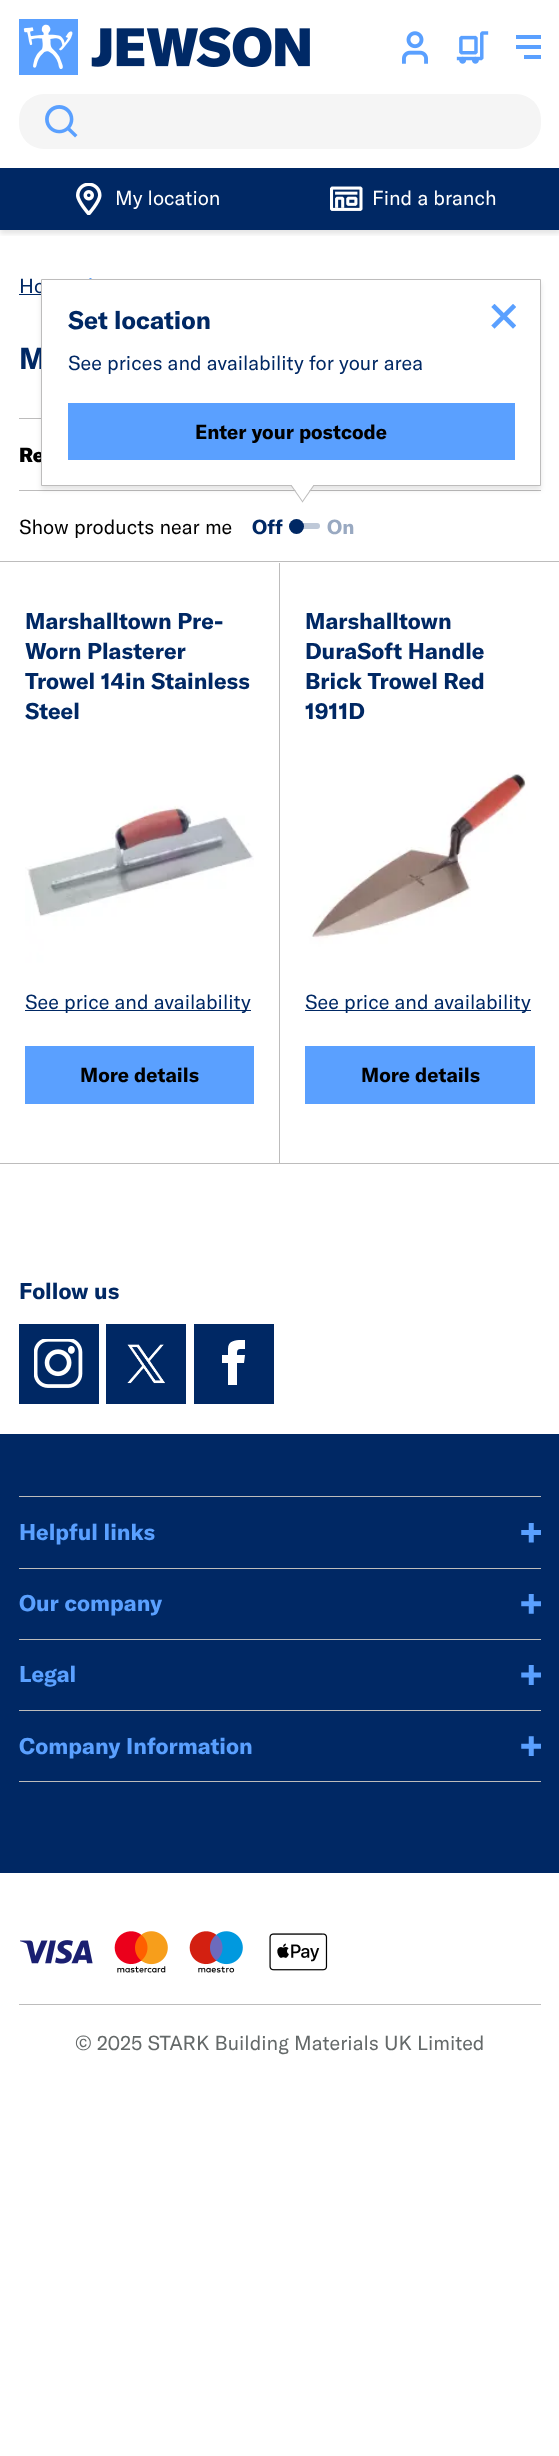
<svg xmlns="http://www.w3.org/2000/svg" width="559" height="2456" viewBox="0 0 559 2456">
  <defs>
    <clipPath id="clip1"><path d="M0 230h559v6H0z"/></clipPath>
  </defs>
  <rect width="100%" height="100%" fill="#fff"/>
  <g clip-path="url(#clip1)">
    <path d="M0 4h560v230H0z" fill="#0000001a" filter="blur(2.5px)"/>
  </g>
  <image x="19" y="19" width="291" height="56" href="img/1.png"/>
  <image x="402" y="31" width="26" height="33" href="img/2.png"/>
  <image x="456" y="31" width="33" height="33" href="img/3.png"/>
  <path d="M516 35h25v4H516z" fill="#5aa0ff"/>
  <path d="M516 45h25v4H516z" fill="#5aa0ff"/>
  <path d="M524 55h17v4H524z" fill="#5aa0ff"/>
  <rect x="19" y="94" width="522" height="55" rx="25" fill="#f5f5f5"/>
  <image x="45" y="105" width="33" height="33" href="img/4.png"/>
  <path d="M0 168h559v62H0z" fill="#002864"/>
  <image x="76" y="183" width="26" height="32" href="img/5.png"/>
  <image x="330" y="186" width="33" height="25" href="img/6.png"/>
  <path d="M19 294h22v1H19z" fill="#002864"/>
  <image x="89" y="278" width="3" height="1" href="img/7.png"/>
  <path d="M19 418h22v1H19z" fill="#bdbcbc"/>
  <path d="M19 490h522v1H19z" fill="#bdbcbc"/>
  <path d="M41 283h500v207H41z" fill="#0000001a" filter="blur(2.5px)"/>
  <rect x="289" y="523" width="31" height="6" rx="3" fill="#bfc9d8"/>
  <circle cx="296.5" cy="526.5" r="7.5" fill="#002864"/>
  <path d="M0 561h559v1H0z" fill="#bdbcbc"/>
  <path d="M279 563h1v601H279z" fill="#bdbcbc"/>
  <path d="M0 1163h559v1H0z" fill="#bdbcbc"/>
  <image x="25" y="743" width="229" height="228" href="img/9.png"/>
  <path d="M25 1010h226v1H25z" fill="#002864"/>
  <path d="M25 1046h229v58H25z" fill="#5aa0ff"/>
  <image x="305" y="741" width="230" height="230" href="img/10.png"/>
  <path d="M305 1010h226v1H305z" fill="#002864"/>
  <path d="M305 1046h230v58H305z" fill="#5aa0ff"/>
  <path d="M19 1324h80v80H19z" fill="#002864"/>
  <image x="34" y="1339" width="49" height="49" href="img/11.png"/>
  <path d="M106 1324h80v80H106z" fill="#002864"/>
  <image x="127" y="1344" width="38" height="40" href="img/12.png"/>
  <path d="M194 1324h80v80H194z" fill="#002864"/>
  <path d="M228 1355H222V1363H228V1385H237V1363H244L245 1355H237C237 1348 238 1349 245 1349V1340C238 1340 228 1339 228 1349Z" fill="#fff"/>
  <path d="M0 1434h559v439H0z" fill="#002864"/>
  <path d="M19 1496h522v1H19z" fill="#bdbcbc"/>
  <image x="521" y="1523" width="20" height="20" href="img/13.png"/>
  <path d="M19 1568h522v1H19z" fill="#bdbcbc"/>
  <image x="521" y="1594" width="20" height="20" href="img/14.png"/>
  <path d="M19 1639h522v1H19z" fill="#bdbcbc"/>
  <image x="521" y="1665" width="20" height="20" href="img/15.png"/>
  <path d="M19 1710h522v1H19z" fill="#bdbcbc"/>
  <path d="M19 1781h522v1H19z" fill="#bdbcbc"/>
  <image x="521" y="1736" width="20" height="20" href="img/16.png"/>
  <image x="20" y="1940" width="73" height="24" href="img/17.png"/>
  <image x="114" y="1931" width="54" height="42" href="img/18.png"/>
  <image x="189" y="1931" width="54" height="42" href="img/19.png"/>
  <image x="269" y="1933" width="59" height="38" href="img/20.png"/>
  <path d="M19 2004h522v1H19z" fill="#bdbcbc"/>
  <g font-family="GT America" font-size="20" fill="#fff">
    <text x="115" y="205">My location</text>
    <text x="372" y="205">Find a branch</text>
  </g>
  <text x="19" y="293" font-family="GT America" font-size="20" fill="#002864">Ho</text>
  <text x="252" y="534" font-family="GT America" font-size="20" font-weight="bold" fill="#002864">Off</text>
  <text x="327" y="534" font-family="GT America" font-size="20" font-weight="bold" fill="#99a9c1">On</text>
  <text x="19" y="534" font-family="GT America" font-size="20" fill="#000">Show products near me</text>
  <text x="19" y="462" font-family="GT America" font-size="20" font-weight="900" fill="#000">Re</text>
  <g font-family="GT America" font-size="22.5" font-weight="bold" fill="#002864">
    <text x="25" y="629">Marshalltown Pre-</text>
    <text x="25" y="659">Worn Plasterer</text>
    <text x="25" y="689">Trowel 14in Stainless</text>
    <text x="25" y="719">Steel</text>
  </g>
  <text x="25" y="1009" font-family="GT America" font-size="20" fill="#002864">See price and availability</text>
  <text x="80" y="1082" font-family="GT America" font-size="20" font-weight="bold" fill="#000">More details</text>
  <g font-family="GT America" font-size="22.5" font-weight="bold" fill="#002864">
    <text x="305" y="629">Marshalltown</text>
    <text x="305" y="659">DuraSoft Handle</text>
    <text x="305" y="689">Brick Trowel Red</text>
    <text x="305" y="719">1911D</text>
  </g>
  <text x="305" y="1009" font-family="GT America" font-size="20" fill="#002864">See price and availability</text>
  <text x="361" y="1082" font-family="GT America" font-size="20" font-weight="bold" fill="#000">More details</text>
  <text x="19" y="369" font-family="GT America" font-size="30" font-weight="bold" fill="#002864">M</text>
  <path d="M41.5 279.5h499v206H41.5z" fill="#fff" stroke="#bdbcbc"/>
  <path d="M302.5 469.5L313.5 485L302.5 500.5L291.5 485Z" fill="#fff"/>
  <path d="M313.5 485L314 486L302.5 502.5L302 501.5Z" fill="#bdbcbc"/>
  <path d="M291.5 485L303 501.5L302.5 502.5L291 486Z" fill="#bdbcbc"/>
  <image x="491" y="304" width="25" height="25" href="img/8.png"/>
  <path d="M68 403h447v57H68z" fill="#5aa0ff"/>
  <text x="195" y="439" font-family="GT America" font-size="20" font-weight="bold" fill="#000">Enter your postcode</text>
  <text x="68" y="370" font-family="GT America" font-size="20" fill="#002864">See prices and availability for your area</text>
  <text x="68" y="329" font-family="GT America" font-size="25" font-weight="bold" fill="#002864">Set location</text>
  <text x="19" y="1299" font-family="GT America" font-size="22.5" font-weight="bold" fill="#002864">Follow us</text>
  <g font-family="GT America" font-size="22.5" font-weight="bold" fill="#5aa0ff">
    <text x="19" y="1540">Helpful links</text>
    <text x="19" y="1611">Our company</text>
    <text x="19" y="1682">Legal</text>
    <text x="19" y="1754">Company Information</text>
  </g>
  <text x="75" y="2050" font-family="GT America" font-size="20" fill="#646969">© 2025 STARK Building Materials UK Limited</text>
</svg>
